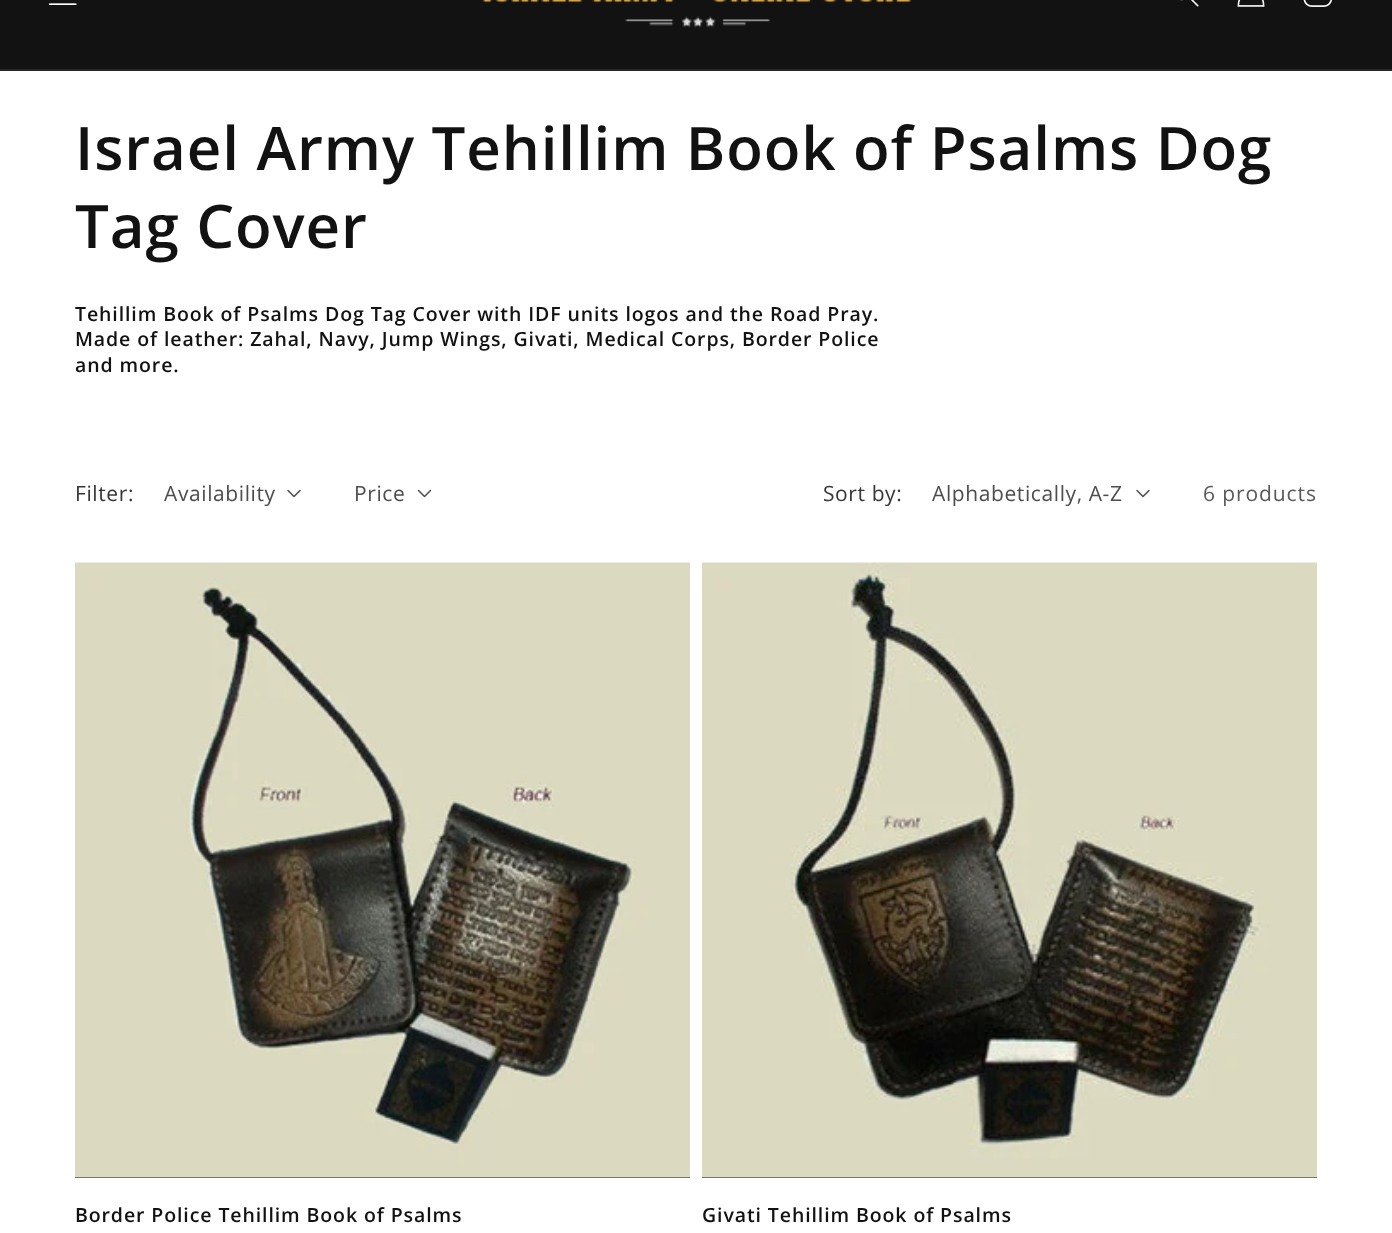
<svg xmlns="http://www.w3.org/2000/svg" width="1392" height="1233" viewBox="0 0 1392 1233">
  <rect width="100%" height="100%" fill="#fff"/>
  <path d="M0 0h1392v69H0z" fill="#121212"/>
  <path d="M0 69h1392v2H0z" fill="#252525"/>
  <image x="48" y="3" width="29" height="2" href="img/1.png"/>
  <image x="482" y="0" width="429" height="28" href="img/2.png"/>
  <image x="1180" y="0" width="19" height="7" href="img/3.png"/>
  <image x="1237" y="0" width="28" height="7" href="img/4.png"/>
  <image x="1303" y="0" width="29" height="7" href="img/5.png"/>
  <image x="287" y="489" width="14" height="9" href="img/6.png"/>
  <image x="417" y="489" width="15" height="9" href="img/7.png"/>
  <image x="1136" y="489" width="14" height="9" href="img/6.png"/>
  <path d="M75 1177h615v1H75z" fill="#121212"/>
  <image x="75" y="562" width="615" height="616" href="img/8.png"/>
  <path d="M702 1177h615v1H702z" fill="#121212"/>
  <image x="702" y="562" width="615" height="616" href="img/9.png"/>
  <g font-family="Open Sans" font-size="60" font-weight="600" letter-spacing="0.9" fill="#121212">
    <text x="75" y="170">Israel Army Tehillim Book of Psalms Dog</text>
    <text x="75" y="248">Tag Cover</text>
  </g>
  <g font-family="Open Sans" font-size="19.5" font-weight="600" letter-spacing="0.9" fill="#121212">
    <text x="75" y="321">Tehillim Book of Psalms Dog Tag Cover with IDF units logos and the Road Pray.</text>
    <text x="75" y="346">Made of leather: Zahal, Navy, Jump Wings, Givati, Medical Corps, Border Police</text>
    <text x="75" y="372">and more.</text>
  </g>
  <text x="75" y="501" font-family="Open Sans" font-size="21" letter-spacing="0.6" fill="#363636">Filter:</text>
  <g font-family="Open Sans" font-size="21" letter-spacing="0.6" fill="#4d4d4d">
    <text x="164" y="501">Availability</text>
    <text x="354" y="501">Price</text>
  </g>
  <text x="823" y="501" font-family="Open Sans" font-size="21" letter-spacing="0.6" fill="#363636">Sort by:</text>
  <text x="932" y="501" font-family="Open Sans" font-size="21" letter-spacing="0.6" fill="#4d4d4d">Alphabetically, A-Z</text>
  <text x="1203" y="501" font-family="Open Sans" font-size="21" letter-spacing="0.9" fill="#595959">6 products</text>
  <g font-family="Open Sans" font-size="19.5" font-weight="600" letter-spacing="0.9" fill="#121212">
    <text x="75" y="1222">Border Police Tehillim Book of Psalms</text>
    <text x="702" y="1222">Givati Tehillim Book of Psalms</text>
  </g>
</svg>
